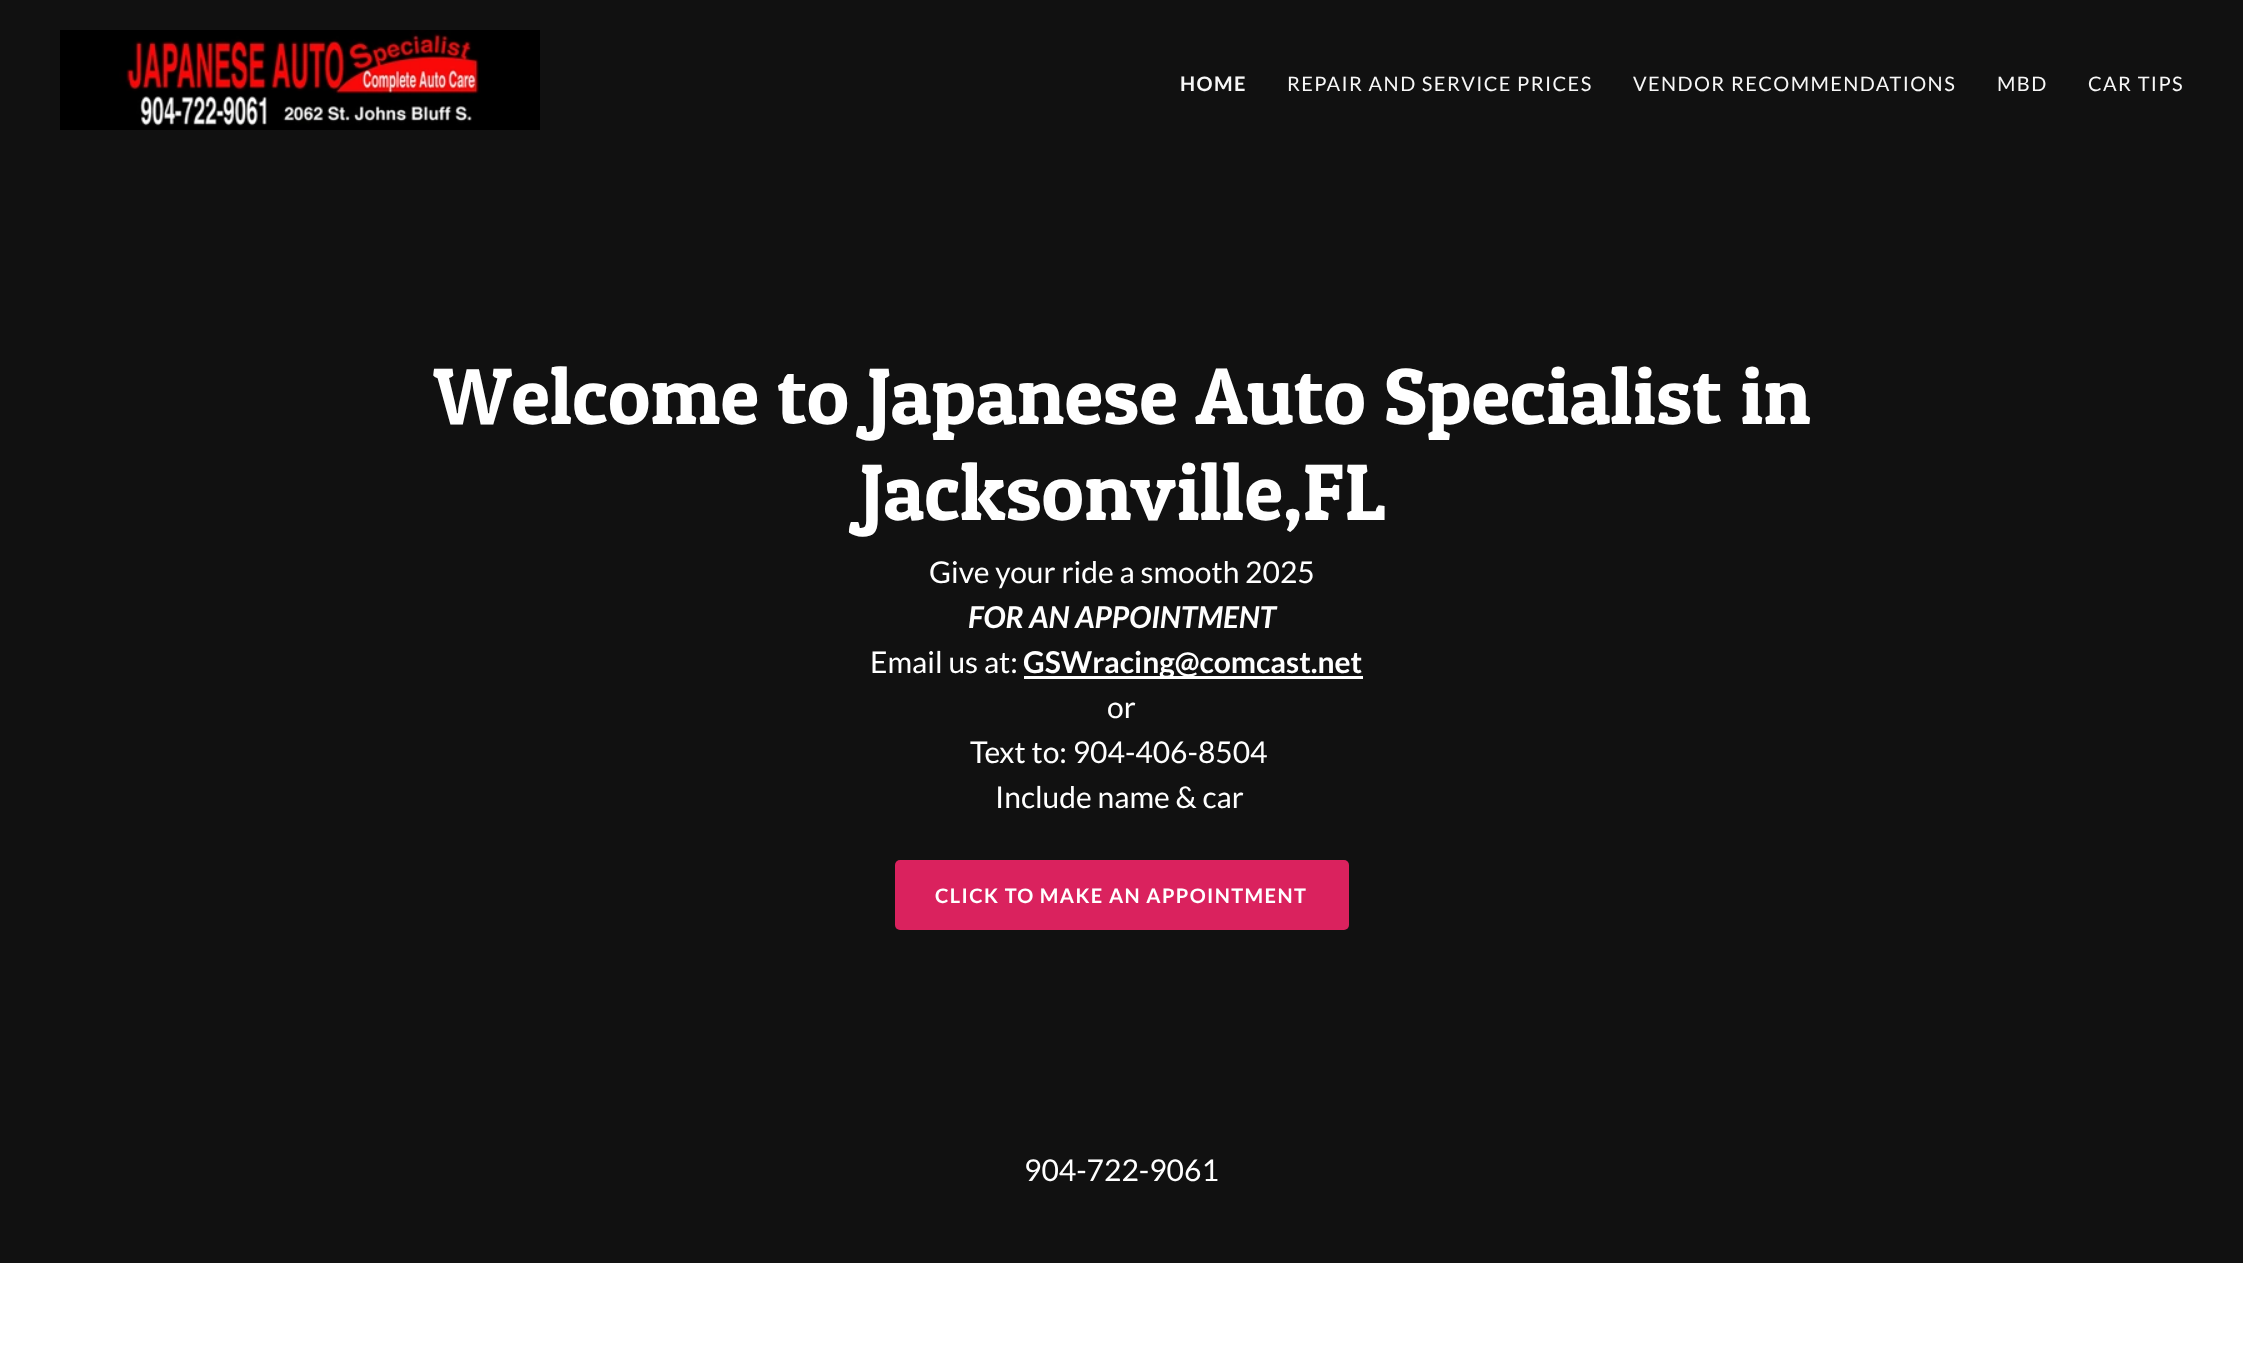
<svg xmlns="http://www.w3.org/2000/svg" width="2243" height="1363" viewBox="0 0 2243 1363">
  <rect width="100%" height="100%" fill="#fff"/>
  <path d="M0 0h2243v1263H0z" fill="#111"/>
  <image x="60" y="30" width="480" height="100" href="img/1.png"/>
  <path d="M1024 676h339v3H1024z" fill="#fff"/>
  <rect x="895" y="860" width="454" height="70" rx="5" fill="#da225e"/>
  <text x="1180" y="91" font-family="Lato" font-size="20" font-weight="bold" letter-spacing="1.4" fill="#f7f7f7">HOME</text>
  <g font-family="Lato" font-size="20" letter-spacing="1.4" fill="#f7f7f7">
    <text x="1287" y="91">REPAIR AND SERVICE PRICES</text>
    <text x="1633" y="91">VENDOR RECOMMENDATIONS</text>
    <text x="1997" y="91">MBD</text>
    <text x="2088" y="91">CAR TIPS</text>
  </g>
  <g font-family="Patua One" font-size="80" fill="#fff">
    <text x="433" y="424">Welcome to Japanese Auto Specialist in</text>
    <text x="860" y="520">Jacksonville,FL</text>
  </g>
  <text x="929" y="583" font-family="Lato" font-size="30" fill="#fff">Give your ride a smooth 2025</text>
  <text x="968" y="628" font-family="Lato" font-size="30" font-weight="bold" font-style="italic" fill="#fff">FOR AN APPOINTMENT</text>
  <text x="870" y="673" font-family="Lato" font-size="30" fill="#fff">Email us at:</text>
  <text x="1023" y="673" font-family="Lato" font-size="30" font-weight="bold" fill="#fff">GSWracing@comcast.net</text>
  <g font-family="Lato" font-size="30" fill="#fff">
    <text x="1107" y="718">or</text>
    <text x="970" y="763">Text to: 904-406-8504</text>
    <text x="995" y="808">Include name &amp; car</text>
  </g>
  <text x="935" y="903" font-family="Lato" font-size="20" font-weight="bold" letter-spacing="1.4" fill="#fff">CLICK TO MAKE AN APPOINTMENT</text>
  <text x="1024" y="1181" font-family="Lato" font-size="30" fill="#fff">904-722-9061</text>
</svg>
